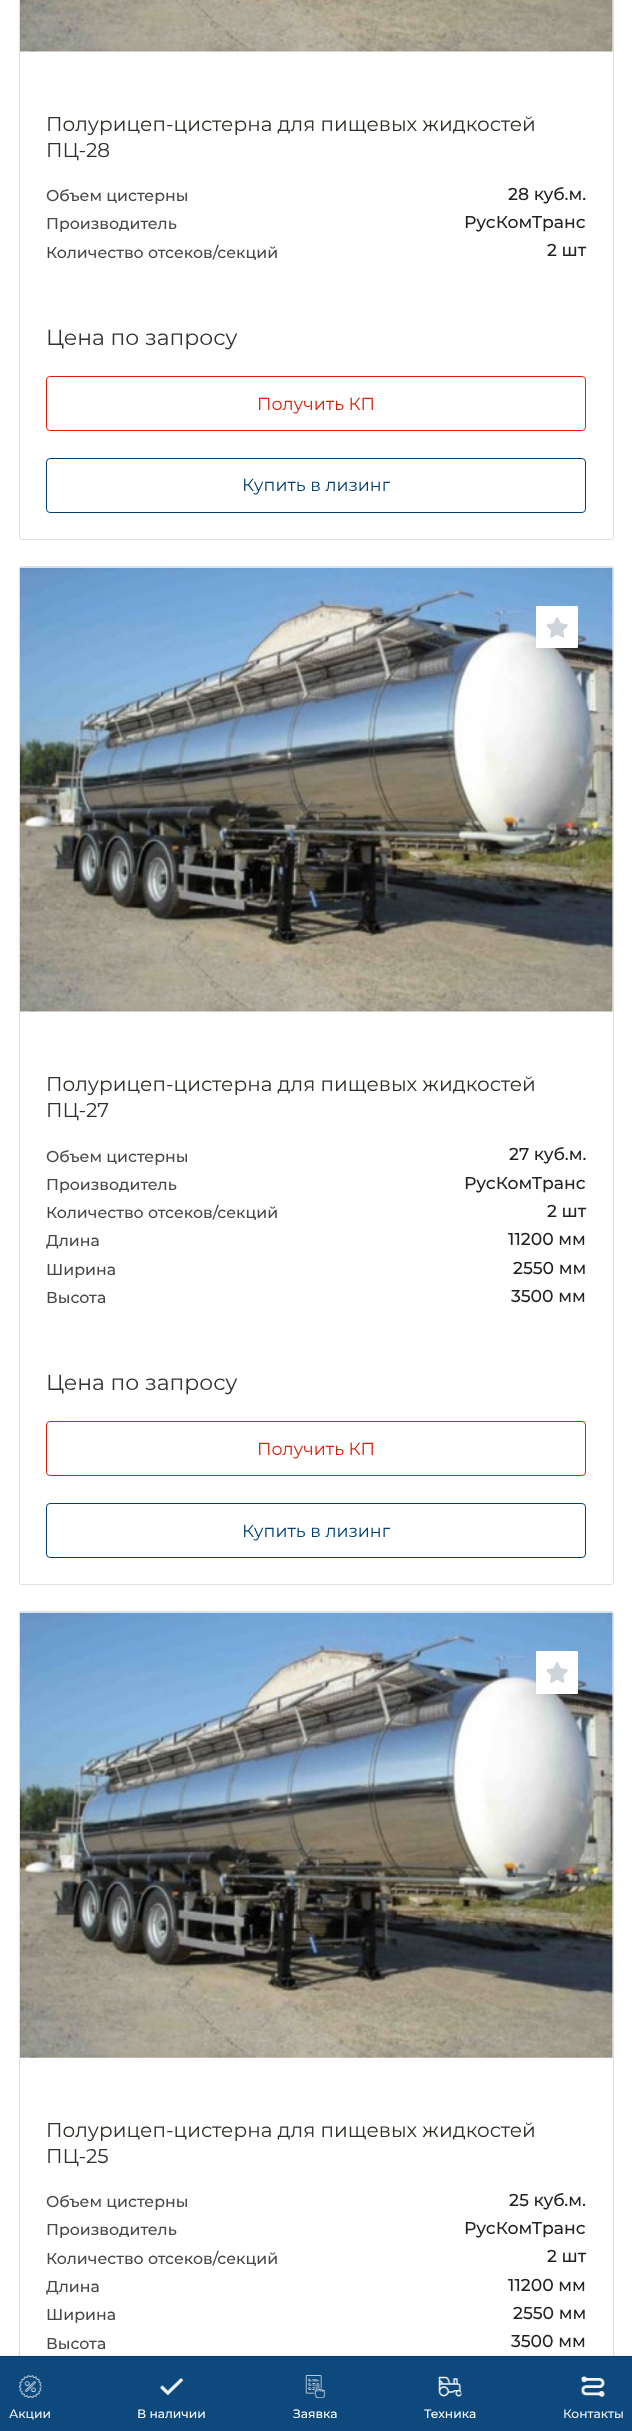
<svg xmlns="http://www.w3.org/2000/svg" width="632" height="2431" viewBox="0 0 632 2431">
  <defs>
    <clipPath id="clip1"><path d="M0 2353h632v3H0z"/></clipPath>
  </defs>
  <rect width="100%" height="100%" fill="#fff"/>
  <rect x="19.5" y="-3.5" width="594" height="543" rx="2" fill="none" stroke="#dfdfdf"/>
  <image x="20" y="0" width="593" height="52" href="img/1.png"/>
  <rect x="46.5" y="376.5" width="539" height="54" rx="3.5" fill="none" stroke="#de1e07"/>
  <rect x="46.5" y="458.5" width="539" height="54" rx="3.5" fill="none" stroke="#003f75"/>
  <rect x="19.5" y="566.5" width="594" height="1018" rx="2" fill="none" stroke="#dfdfdf"/>
  <image x="20" y="567" width="593" height="445" href="img/2.png"/>
  <rect x="536" y="606" width="42" height="42" rx="1" fill="#fff"/>
  <image x="546" y="617" width="22" height="21" href="img/3.png"/>
  <rect x="46.5" y="1421.5" width="539" height="54" rx="3.5" fill="none" stroke="#de1e07"/>
  <rect x="46.5" y="1503.5" width="539" height="54" rx="3.5" fill="none" stroke="#003f75"/>
  <rect x="19.5" y="1611.5" width="594" height="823" rx="2" fill="none" stroke="#dfdfdf"/>
  <image x="20" y="1612" width="593" height="446" href="img/4.png"/>
  <rect x="536" y="1651" width="42" height="43" rx="1" fill="#fff"/>
  <image x="546" y="1662" width="22" height="21" href="img/5.png"/>
  <g clip-path="url(#clip1)">
    <path d="M0 2363h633v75H0z" fill="#00000061" filter="blur(6px)"/>
  </g>
  <path d="M0 2357h632v74H0z" fill="#003f75f2"/>
  <path d="M0 2356h632v1H0z" fill="#0a3b64"/>
  <image x="19" y="2375" width="23" height="23" href="img/6.png"/>
  <image x="159" y="2378" width="25" height="18" href="img/7.png"/>
  <image x="305" y="2375" width="21" height="24" href="img/8.png"/>
  <image x="438" y="2376" width="24" height="21" href="img/9.png"/>
  <image x="580" y="2376" width="25" height="21" href="img/10.png"/>
  <g font-family="Montserrat" font-size="20" fill="#312e28">
    <text x="46" y="131">Полурицеп-цистерна для пищевых жидкостей</text>
    <text x="46" y="157">ПЦ-28</text>
  </g>
  <text x="46" y="201" font-family="Montserrat" font-size="15.75" font-weight="500" fill="#484848">Объем цистерны</text>
  <text x="508" y="200" font-family="Montserrat" font-size="17.25" font-weight="500" fill="#222">28 куб.м.</text>
  <text x="46" y="229" font-family="Montserrat" font-size="15.75" font-weight="500" fill="#484848">Производитель</text>
  <text x="464" y="228" font-family="Montserrat" font-size="17.25" font-weight="500" fill="#222">РусКомТранс</text>
  <text x="46" y="258" font-family="Montserrat" font-size="15.75" font-weight="500" fill="#484848">Количество отсеков/секций</text>
  <text x="547" y="256" font-family="Montserrat" font-size="17.25" font-weight="500" fill="#222">2 шт</text>
  <text x="46" y="345" font-family="Montserrat" font-size="21.9" fill="#333">Цена по запросу</text>
  <text x="257" y="410" font-family="Montserrat" font-size="17.5" fill="#de1e07">Получить КП</text>
  <text x="242" y="491" font-family="Montserrat" font-size="17.5" fill="#003f75">Купить в лизинг</text>
  <g font-family="Montserrat" font-size="20" fill="#312e28">
    <text x="46" y="1091">Полурицеп-цистерна для пищевых жидкостей</text>
    <text x="46" y="1117">ПЦ-27</text>
  </g>
  <text x="46" y="1162" font-family="Montserrat" font-size="15.75" font-weight="500" fill="#484848">Объем цистерны</text>
  <text x="509" y="1160" font-family="Montserrat" font-size="17.25" font-weight="500" fill="#222">27 куб.м.</text>
  <text x="46" y="1190" font-family="Montserrat" font-size="15.75" font-weight="500" fill="#484848">Производитель</text>
  <text x="464" y="1189" font-family="Montserrat" font-size="17.25" font-weight="500" fill="#222">РусКомТранс</text>
  <text x="46" y="1218" font-family="Montserrat" font-size="15.75" font-weight="500" fill="#484848">Количество отсеков/секций</text>
  <text x="547" y="1217" font-family="Montserrat" font-size="17.25" font-weight="500" fill="#222">2 шт</text>
  <text x="46" y="1246" font-family="Montserrat" font-size="15.75" font-weight="500" fill="#484848">Длина</text>
  <text x="508" y="1245" font-family="Montserrat" font-size="17.25" font-weight="500" fill="#222">11200 мм</text>
  <text x="46" y="1275" font-family="Montserrat" font-size="15.75" font-weight="500" fill="#484848">Ширина</text>
  <text x="513" y="1274" font-family="Montserrat" font-size="17.25" font-weight="500" fill="#222">2550 мм</text>
  <text x="46" y="1303" font-family="Montserrat" font-size="15.75" font-weight="500" fill="#484848">Высота</text>
  <text x="511" y="1302" font-family="Montserrat" font-size="17.25" font-weight="500" fill="#222">3500 мм</text>
  <text x="46" y="1390" font-family="Montserrat" font-size="21.9" fill="#333">Цена по запросу</text>
  <text x="257" y="1455" font-family="Montserrat" font-size="17.5" fill="#de1e07">Получить КП</text>
  <text x="242" y="1537" font-family="Montserrat" font-size="17.5" fill="#003f75">Купить в лизинг</text>
  <g font-family="Montserrat" font-size="20" fill="#312e28">
    <text x="46" y="2137">Полурицеп-цистерна для пищевых жидкостей</text>
    <text x="46" y="2163">ПЦ-25</text>
  </g>
  <text x="46" y="2207" font-family="Montserrat" font-size="15.75" font-weight="500" fill="#484848">Объем цистерны</text>
  <text x="509" y="2206" font-family="Montserrat" font-size="17.25" font-weight="500" fill="#222">25 куб.м.</text>
  <text x="46" y="2235" font-family="Montserrat" font-size="15.75" font-weight="500" fill="#484848">Производитель</text>
  <text x="464" y="2234" font-family="Montserrat" font-size="17.25" font-weight="500" fill="#222">РусКомТранс</text>
  <text x="46" y="2264" font-family="Montserrat" font-size="15.75" font-weight="500" fill="#484848">Количество отсеков/секций</text>
  <text x="547" y="2262" font-family="Montserrat" font-size="17.25" font-weight="500" fill="#222">2 шт</text>
  <text x="46" y="2292" font-family="Montserrat" font-size="15.75" font-weight="500" fill="#484848">Длина</text>
  <text x="508" y="2291" font-family="Montserrat" font-size="17.25" font-weight="500" fill="#222">11200 мм</text>
  <text x="46" y="2320" font-family="Montserrat" font-size="15.75" font-weight="500" fill="#484848">Ширина</text>
  <text x="513" y="2319" font-family="Montserrat" font-size="17.25" font-weight="500" fill="#222">2550 мм</text>
  <text x="46" y="2349" font-family="Montserrat" font-size="15.75" font-weight="500" fill="#484848">Высота</text>
  <text x="511" y="2347" font-family="Montserrat" font-size="17.25" font-weight="500" fill="#222">3500 мм</text>
  <text x="9" y="2418" font-family="Montserrat" font-size="12.25" font-weight="500" fill="#f3f6f8">Акции</text>
  <g font-family="Montserrat" font-size="12.25" font-weight="500" fill="#fff">
    <text x="137" y="2418">В наличии</text>
    <text x="293" y="2418">Заявка</text>
    <text x="424" y="2418">Техника</text>
  </g>
  <text x="563" y="2418" font-family="Montserrat" font-size="12.25" font-weight="500" fill="#f3f6f8">Контакты</text>
</svg>
